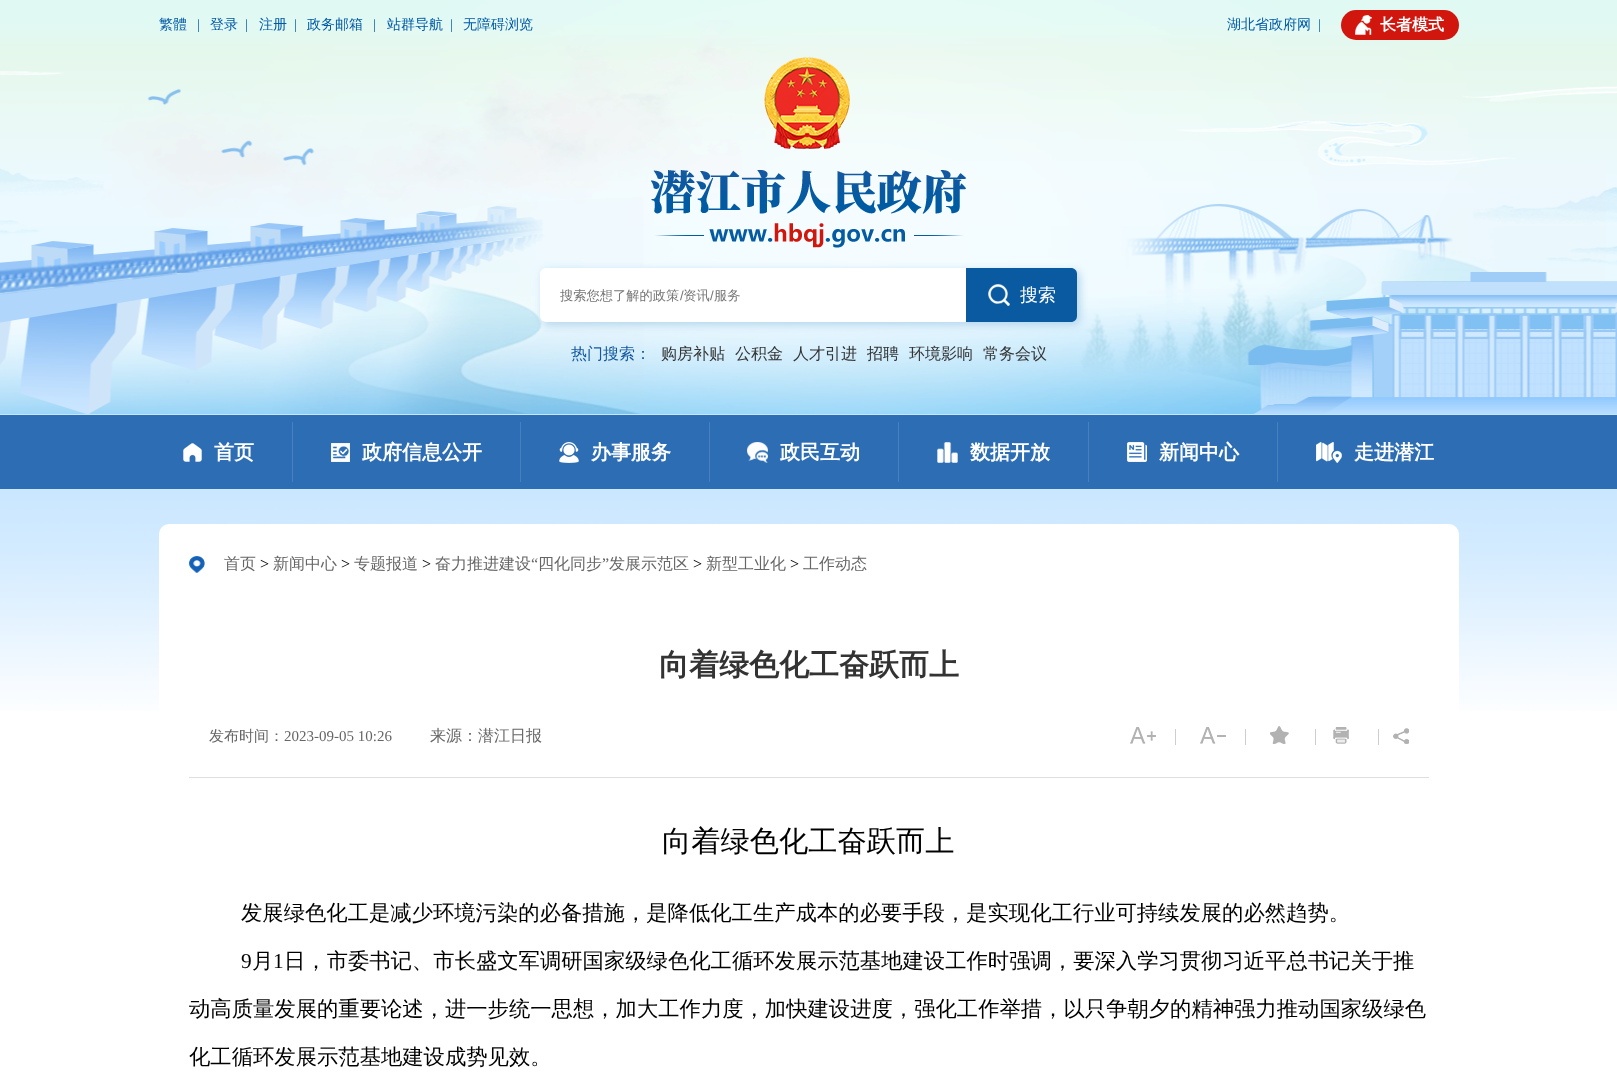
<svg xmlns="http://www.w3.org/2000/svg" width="1617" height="1086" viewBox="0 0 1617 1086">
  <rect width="100%" height="100%" fill="#fff"/>
  <image x="0" y="0" width="1617" height="711" href="img/1.png"/>
  <rect x="1341" y="10" width="118" height="30" rx="15" fill="#d1160e"/>
  <image x="1355" y="15" width="17" height="20" href="img/2.png"/>
  <image x="651" y="57" width="316" height="191" href="img/3.png"/>
  <rect x="543" y="271" width="537" height="54" rx="6" fill="#b3d5ed" filter="blur(4.5px)"/>
  <rect x="540" y="268" width="537" height="54" rx="6" fill="#fff"/>
  <path d="M966 268H1071C1074.5 268 1077 270.5 1077 274V316C1077 319.5 1074.5 322 1071 322H966Z" fill="#0a5aa1"/>
  <image x="988" y="284" width="22" height="22" href="img/4.png"/>
  <path d="M0 415h1617v74H0z" fill="#2c6db4"/>
  <image x="183" y="443" width="19" height="19" href="img/5.png"/>
  <path d="M292 422h1v60H292z" fill="#4780be"/>
  <image x="331" y="443" width="19" height="19" href="img/6.png"/>
  <path d="M520 422h1v60H520z" fill="#4780be"/>
  <image x="559" y="442" width="20" height="21" href="img/7.png"/>
  <path d="M709 422h1v60H709z" fill="#4780be"/>
  <image x="747" y="442" width="21" height="21" href="img/8.png"/>
  <path d="M898 422h1v60H898z" fill="#4780be"/>
  <image x="937" y="442" width="21" height="21" href="img/9.png"/>
  <path d="M1088 422h1v60H1088z" fill="#4780be"/>
  <image x="1127" y="442" width="20" height="20" href="img/10.png"/>
  <path d="M1277 422h1v60H1277z" fill="#4780be"/>
  <image x="1316" y="442" width="26" height="21" href="img/11.png"/>
  <rect x="159" y="524" width="1300" height="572" rx="10" fill="#fff"/>
  <image x="189" y="556" width="16" height="17" href="img/12.png"/>
  <image x="1130" y="727" width="26" height="17" href="img/13.png"/>
  <path d="M1175 729h1v16H1175z" fill="#cecece"/>
  <image x="1200" y="727" width="26" height="17" href="img/14.png"/>
  <path d="M1245 729h1v16H1245z" fill="#cecece"/>
  <image x="1270" y="726" width="19" height="18" href="img/15.png"/>
  <path d="M1315 729h1v16H1315z" fill="#cecece"/>
  <image x="1333" y="727" width="16" height="17" href="img/16.png"/>
  <path d="M1378 729h1v16H1378z" fill="#cecece"/>
  <image x="1393" y="728" width="16" height="16" href="img/17.png"/>
  <path d="M189 777h1240v1H189z" fill="#dfdfdf"/>
  <text x="159" y="29" font-family="WenQuanYi Zen Hei" font-size="14" font-weight="500" fill="#0059a7">繁體</text>
  <text x="197" y="29" font-family="Liberation Serif" font-size="14" fill="#0059a7">|</text>
  <text x="210" y="29" font-family="WenQuanYi Zen Hei" font-size="14" font-weight="500" fill="#0059a7">登录</text>
  <text x="245" y="29" font-family="Liberation Serif" font-size="14" fill="#0059a7">|</text>
  <text x="259" y="29" font-family="WenQuanYi Zen Hei" font-size="14" font-weight="500" fill="#0059a7">注册</text>
  <text x="294" y="29" font-family="Liberation Serif" font-size="14" fill="#0059a7">|</text>
  <text x="307" y="29" font-family="WenQuanYi Zen Hei" font-size="14" font-weight="500" fill="#0059a7">政务邮箱</text>
  <text x="373" y="29" font-family="Liberation Serif" font-size="14" fill="#0059a7">|</text>
  <text x="387" y="29" font-family="WenQuanYi Zen Hei" font-size="14" font-weight="500" fill="#0059a7">站群导航</text>
  <text x="450" y="29" font-family="Liberation Serif" font-size="14" fill="#0059a7">|</text>
  <g font-family="WenQuanYi Zen Hei" font-size="14" font-weight="500" fill="#0059a7">
    <text x="463" y="29">无障碍浏览</text>
    <text x="1227" y="29">湖北省政府网</text>
  </g>
  <text x="1318" y="29" font-family="Liberation Serif" font-size="14" fill="#0059a7">|</text>
  <text x="1380" y="30" font-family="WenQuanYi Zen Hei" font-size="16" font-weight="bold" fill="#fff">长者模式</text>
  <text x="560" y="300" font-family="WenQuanYi Zen Hei" font-size="13.25" font-weight="500" fill="#757575">搜索您想了解的政策 资讯</text>
  <g font-family="Liberation Sans" font-size="13.25" fill="#757575">
    <text x="680" y="300">/</text>
    <text x="710" y="300">/</text>
  </g>
  <text x="714" y="300" font-family="WenQuanYi Zen Hei" font-size="13.25" font-weight="500" fill="#757575">服务</text>
  <text x="1020" y="301" font-family="WenQuanYi Zen Hei" font-size="18" font-weight="500" fill="#fff">搜索</text>
  <text x="571" y="359" font-family="WenQuanYi Zen Hei" font-size="16" font-weight="500" fill="#1658a0">热门搜索：</text>
  <g font-family="WenQuanYi Zen Hei" font-size="16" font-weight="500" fill="#333">
    <text x="661" y="359">购房补贴</text>
    <text x="735" y="359">公积金</text>
    <text x="793" y="359">人才引进</text>
    <text x="867" y="359">招聘</text>
    <text x="909" y="359">环境影响</text>
    <text x="983" y="359">常务会议</text>
  </g>
  <g font-family="WenQuanYi Zen Hei" font-size="20" font-weight="bold" fill="#fff">
    <text x="214" y="459">首页</text>
    <text x="362" y="459">政府信息公开</text>
    <text x="591" y="459">办事服务</text>
    <text x="780" y="459">政民互动</text>
    <text x="970" y="459">数据开放</text>
    <text x="1159" y="459">新闻中心</text>
    <text x="1354" y="459">走进潜江</text>
  </g>
  <text x="224" y="569" font-family="WenQuanYi Zen Hei" font-size="16" font-weight="500" fill="#666">首页</text>
  <text x="260" y="569" font-family="Liberation Serif" font-size="16" fill="#000">&gt;</text>
  <text x="273" y="569" font-family="WenQuanYi Zen Hei" font-size="16" font-weight="500" fill="#666">新闻中心</text>
  <text x="341" y="569" font-family="Liberation Serif" font-size="16" fill="#000">&gt;</text>
  <text x="354" y="569" font-family="WenQuanYi Zen Hei" font-size="16" font-weight="500" fill="#666">专题报道</text>
  <text x="422" y="569" font-family="Liberation Serif" font-size="16" fill="#000">&gt;</text>
  <text x="435" y="569" font-family="WenQuanYi Zen Hei" font-size="16" font-weight="500" fill="#666">奋力推进建设</text>
  <text x="531" y="569" font-family="Liberation Serif" font-size="16" fill="#666">“</text>
  <text x="538" y="569" font-family="WenQuanYi Zen Hei" font-size="16" font-weight="500" fill="#666">四化同步</text>
  <text x="602" y="569" font-family="Liberation Serif" font-size="16" fill="#666">”</text>
  <text x="609" y="569" font-family="WenQuanYi Zen Hei" font-size="16" font-weight="500" fill="#666">发展示范区</text>
  <text x="693" y="569" font-family="Liberation Serif" font-size="16" fill="#000">&gt;</text>
  <text x="706" y="569" font-family="WenQuanYi Zen Hei" font-size="16" font-weight="500" fill="#666">新型工业化</text>
  <text x="790" y="569" font-family="Liberation Serif" font-size="16" fill="#000">&gt;</text>
  <text x="803" y="569" font-family="WenQuanYi Zen Hei" font-size="16" font-weight="500" fill="#666">工作动态</text>
  <text x="659" y="675" font-family="WenQuanYi Zen Hei" font-size="30" font-weight="bold" fill="#333">向着绿色化工奋跃而上</text>
  <text x="209" y="741" font-family="WenQuanYi Zen Hei" font-size="15" font-weight="500" fill="#666">发布时间：</text>
  <text x="284" y="741" font-family="Liberation Serif" font-size="15" fill="#666">2023-09-05 10:26</text>
  <text x="430" y="741" font-family="WenQuanYi Zen Hei" font-size="16" font-weight="500" fill="#666">来源：潜江日报</text>
  <text x="662" y="851" font-family="WenQuanYi Zen Hei" font-size="29.25" font-weight="500" fill="#000">向着绿色化工奋跃而上</text>
  <text x="241" y="920" font-family="WenQuanYi Zen Hei" font-size="21.33" font-weight="500" fill="#000">发展绿色化工是减少环境污染的必备措施，是降低化工生产成本的必要手段，是实现化工行业可持续发展的必然趋势。</text>
  <text x="241" y="968" font-family="Liberation Serif" font-size="21.33" fill="#000">9</text>
  <text x="252" y="968" font-family="WenQuanYi Zen Hei" font-size="21.33" font-weight="500" fill="#000">月</text>
  <text x="273" y="968" font-family="Liberation Serif" font-size="21.33" fill="#000">1</text>
  <g font-family="WenQuanYi Zen Hei" font-size="21.33" font-weight="500" fill="#000">
    <text x="284" y="968">日，市委书记、市长盛文军调研国家级绿色化工循环发展示范基地建设工作时强调，要深入学习贯彻习近平总书记关于推</text>
    <text x="189" y="1016">动高质量发展的重要论述，进一步统一思想，加大工作力度，加快建设进度，强化工作举措，以只争朝夕的精神强力推动国家级绿色</text>
    <text x="189" y="1064">化工循环发展示范基地建设成势见效。</text>
  </g>
</svg>
